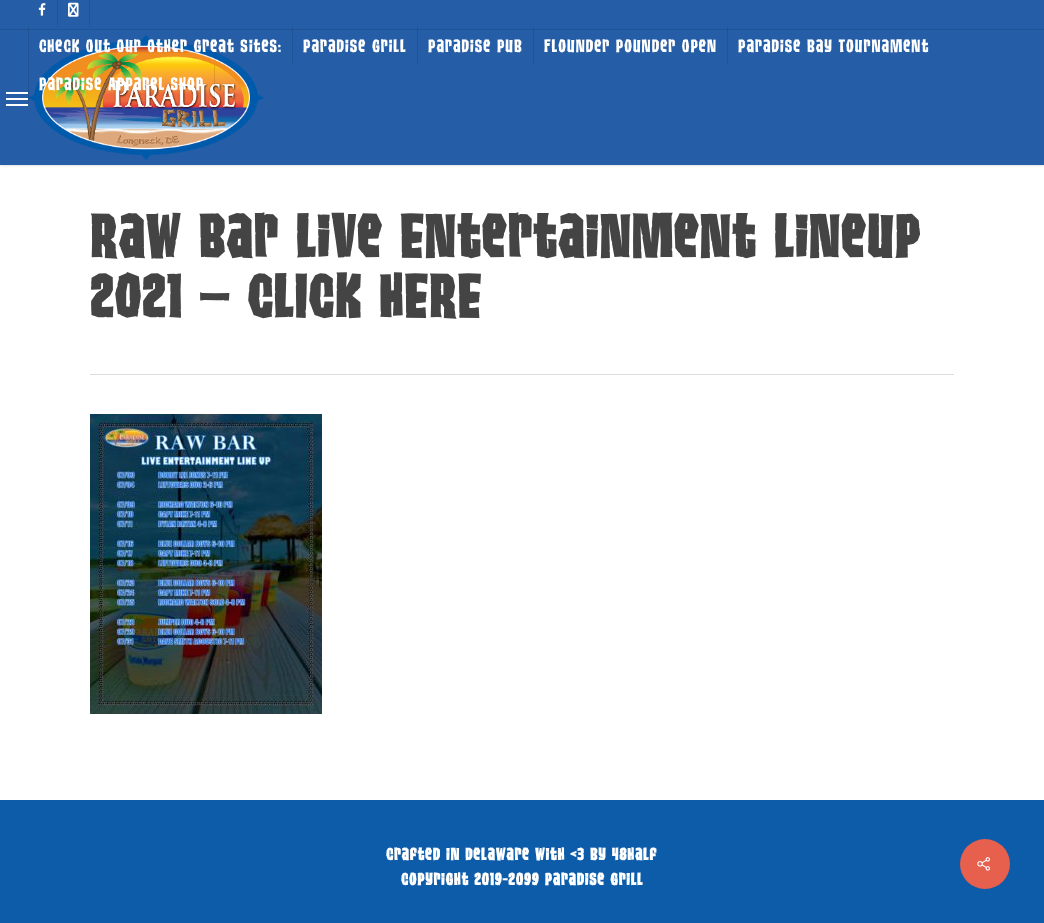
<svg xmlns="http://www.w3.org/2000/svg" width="1044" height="923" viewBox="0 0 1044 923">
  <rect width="100%" height="100%" fill="#fff"/>
  <path d="M0 -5h1044v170H0z" fill="#00000038" filter="blur(1.5px)"/>
  <path d="M0 0h1044v165H0z" fill="#255da6"/>
  <path d="M727 27h1v38H727z" fill="#215495"/>
  <path d="M533 27h1v38H533z" fill="#215495"/>
  <path d="M417 27h1v38H417z" fill="#215495"/>
  <path d="M292 27h1v38H292z" fill="#215495"/>
  <path d="M28 27h1v38H28z" fill="#215495"/>
  <path d="M6 92h22v2H6z" fill="#fff"/>
  <path d="M6 104h22v2H6z" fill="#fff"/>
  <path d="M6 98h22v2H6z" fill="#fff"/>
  <image x="28" y="35" width="236" height="125" href="img/1.png"/>
  <path d="M0 29h1044v1H0z" fill="#215495"/>
  <path d="M727 29h1v1H727z" fill="#1e4c86"/>
  <path d="M533 29h1v1H533z" fill="#1e4c86"/>
  <path d="M417 29h1v1H417z" fill="#1e4c86"/>
  <path d="M292 29h1v1H292z" fill="#1e4c86"/>
  <path d="M28 29h1v1H28z" fill="#1e4c86"/>
  <image x="38" y="3" width="8" height="13" href="img/2.png"/>
  <path d="M89 0h1v27H89z" fill="#215495"/>
  <path d="M57 0h1v27H57z" fill="#215495"/>
  <image x="68" y="2" width="11" height="15" href="img/3.png"/>
  <path d="M214 65h1v38H214z" fill="#0000001a"/>
  <path d="M28 65h1v38H28z" fill="#0000001a"/>
  <path d="M90 374h864v1H90z" fill="#ddd"/>
  <image x="90" y="414" width="232" height="300" href="img/4.png"/>
  <path d="M0 800h1044v123H0z" fill="#0c5ca9"/>
  <circle cx="985" cy="864" r="25" fill="#e75f4d"/>
  <image x="977" y="857" width="13" height="14" href="img/5.png"/>
  <g font-family="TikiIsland" font-size="18" letter-spacing="1" fill="#fff">
    <text x="39" y="52">Check Out Our Other Great Sites:</text>
    <text x="303" y="52">Paradise Grill</text>
    <text x="428" y="52">Paradise Pub</text>
    <text x="544" y="52">Flounder Pounder Open</text>
    <text x="738" y="52">Paradise Bay Tournament</text>
    <text x="39" y="90">Paradise Apparel Shop</text>
  </g>
  <g font-family="TikiIsland" font-size="60" font-weight="bold" letter-spacing="2" fill="#444">
    <text x="90" y="257">Raw Bar Live Entertainment Lineup</text>
    <text x="90" y="317">2021 – CLICK HERE</text>
  </g>
  <g font-family="TikiIsland" font-size="17" font-weight="bold" letter-spacing="1" fill="#fff">
    <text x="386" y="860">Crafted in Delaware with &lt;3 by 48half</text>
    <text x="401" y="885">Copyright 2019-2099 Paradise Grill</text>
  </g>
</svg>
